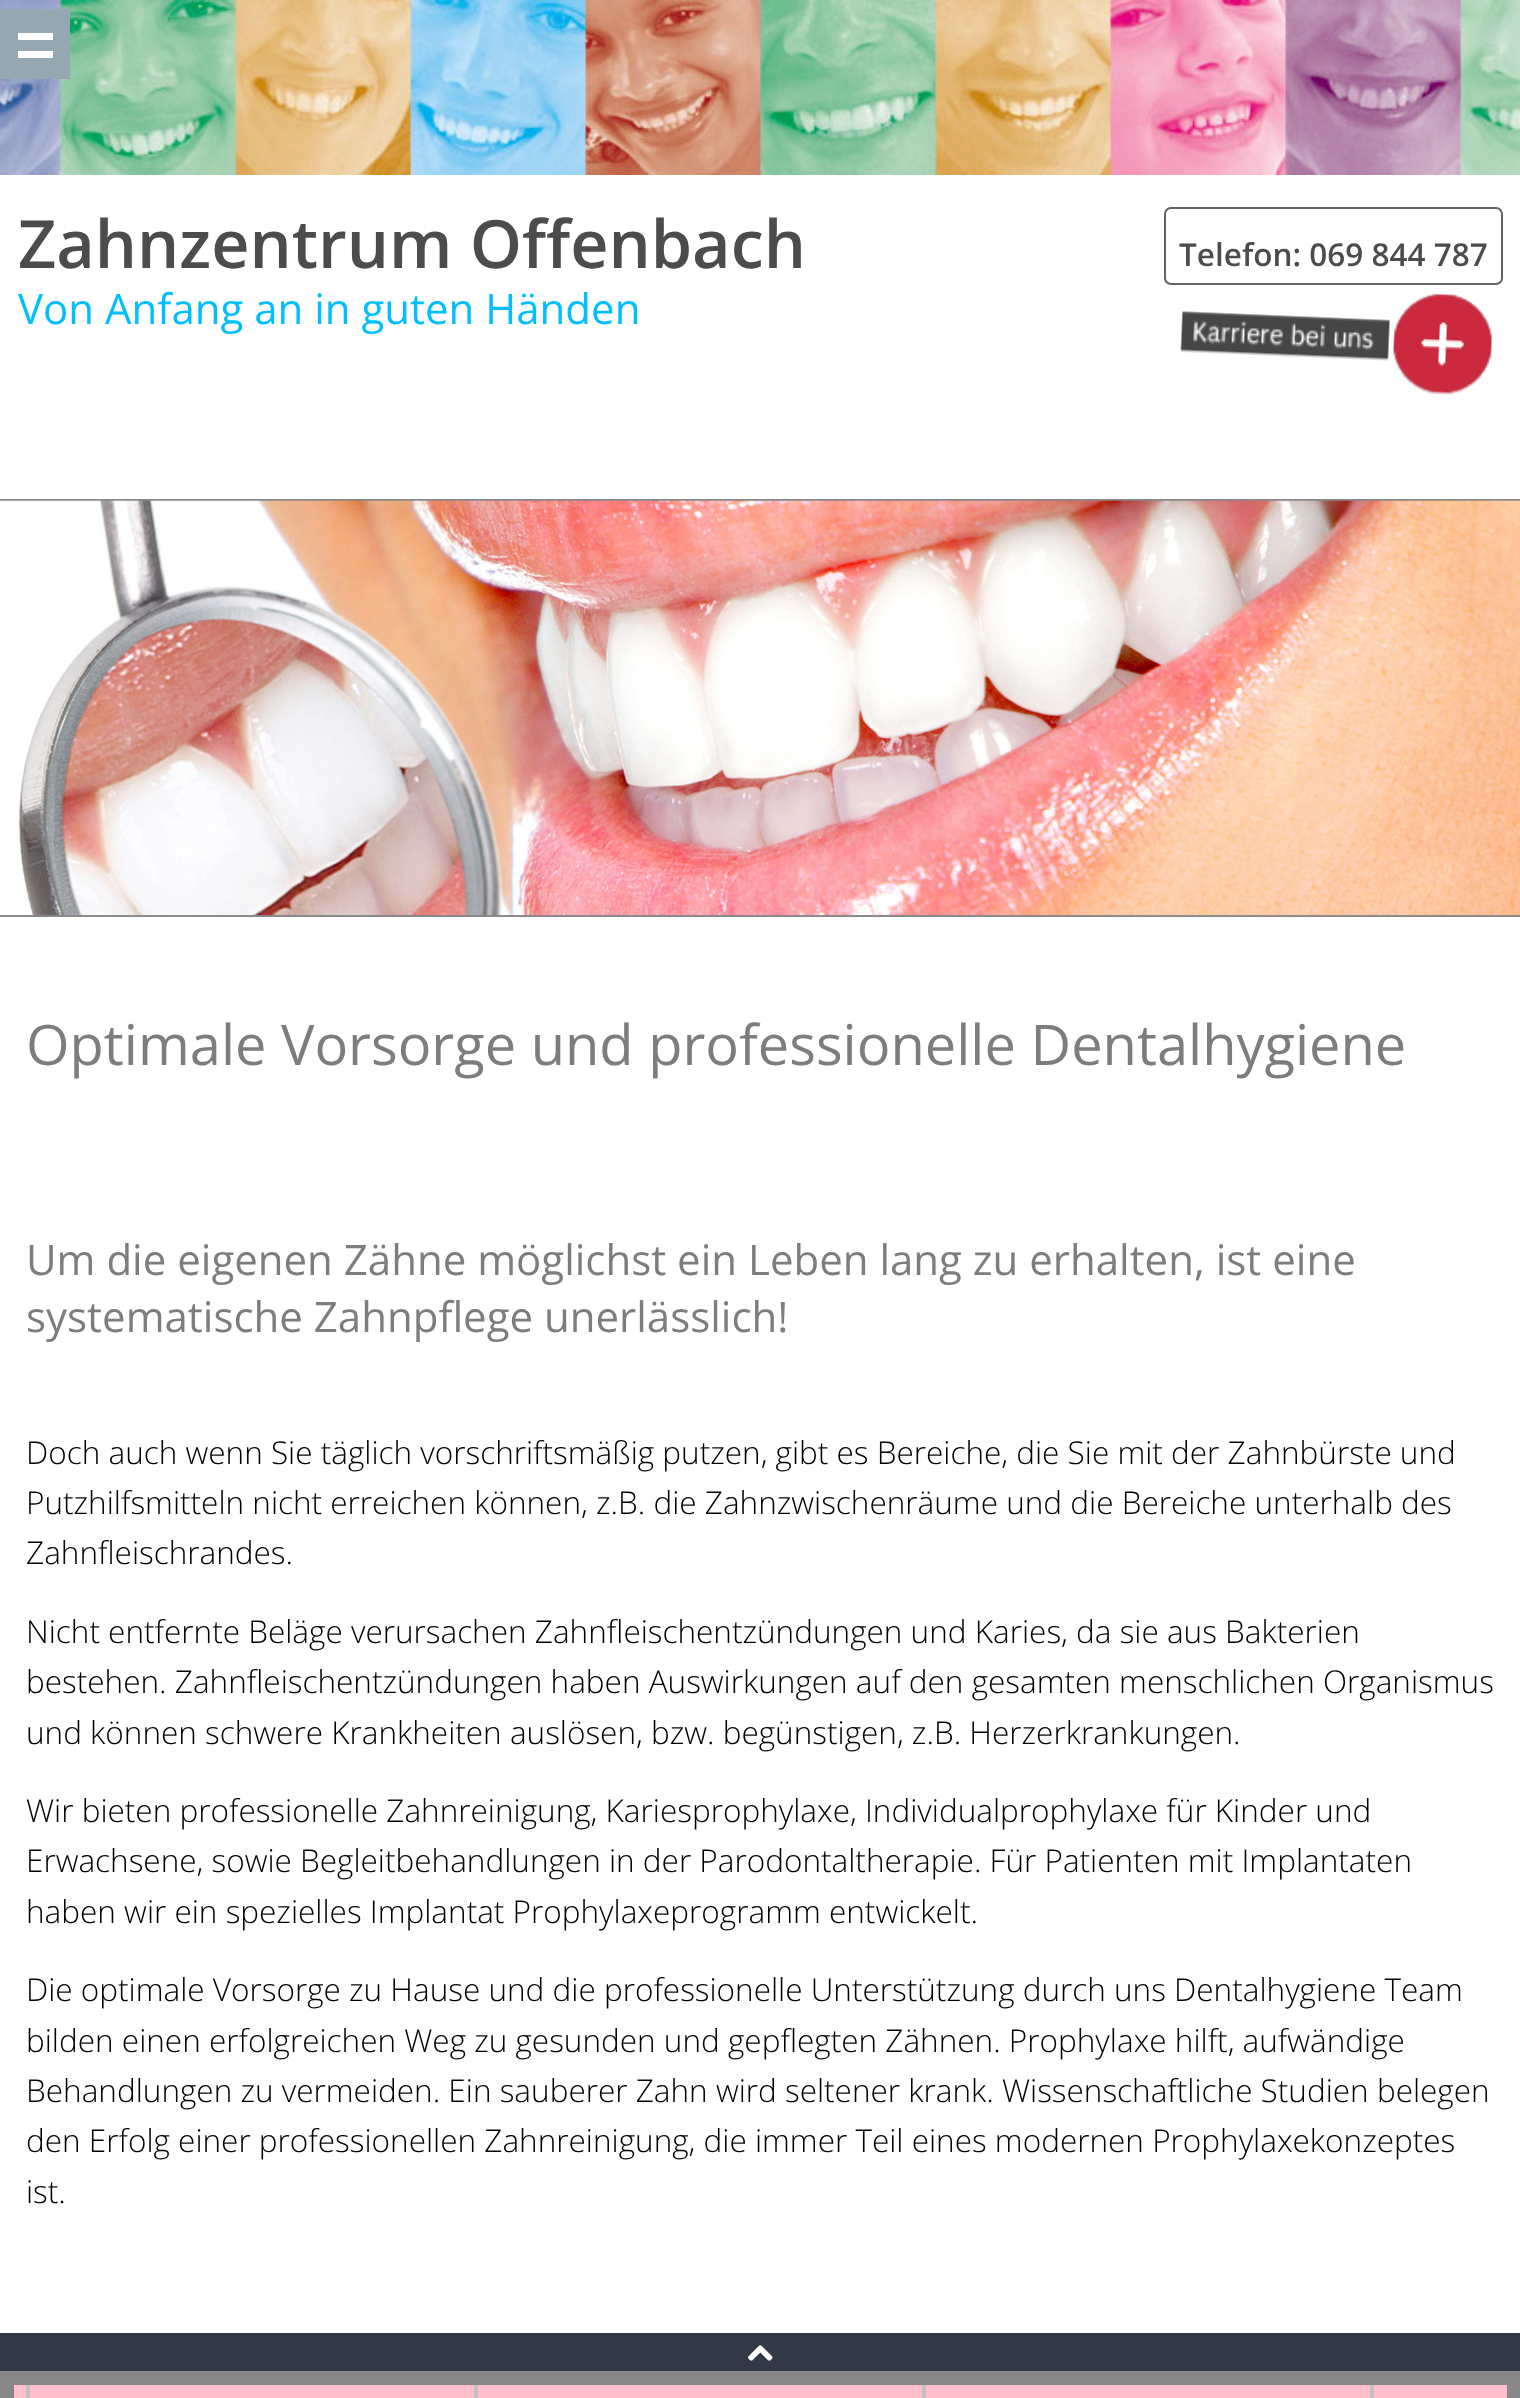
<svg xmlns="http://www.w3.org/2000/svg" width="1520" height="2398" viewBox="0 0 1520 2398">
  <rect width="100%" height="100%" fill="#fff"/>
  <path d="M0 499h1520v2H0z" fill="#888"/>
  <image x="0" y="0" width="1520" height="175" href="img/1.png"/>
  <path d="M0 9h70v70H0z" fill="#95a8b1"/>
  <path d="M18 33h35v7H18z" fill="#fff"/>
  <path d="M18 51h35v7H18z" fill="#fff"/>
  <rect x="1165" y="208" width="337" height="76" rx="6" fill="none" stroke="#636363" stroke-width="2"/>
  <image x="1180" y="293" width="313" height="102" href="img/2.png"/>
  <path d="M0 915h1520v2H0z" fill="#888"/>
  <image x="0" y="500" width="1520" height="416" href="img/3.png"/>
  <path d="M0 2333h1520v38H0z" fill="#323946"/>
  <image x="748" y="2345" width="25" height="16" href="img/4.png"/>
  <path d="M0 2371h1520v27H0z" fill="#888"/>
  <image x="14" y="2385" width="1493" height="13" href="img/5.png"/>
  <text x="18" y="268" font-family="Open Sans" font-size="66.5" font-weight="600" fill="#4c4c4c">Zahnzentrum Offenbach</text>
  <text x="1179" y="266" font-family="Open Sans" font-size="31.5" font-weight="600" fill="#4c4c4c">Telefon: 069 844 787</text>
  <text x="18" y="324" font-family="Open Sans" font-size="42" fill="#00bfff">Von Anfang an in guten Händen</text>
  <text x="26" y="1065" font-family="Open Sans" font-size="56" fill="#7e7d7d">Optimale Vorsorge und professionelle Dentalhygiene</text>
  <g font-family="Open Sans" font-size="42" fill="#7e7d7d">
    <text x="26" y="1275">Um die eigenen Zähne möglichst ein Leben lang zu erhalten, ist eine</text>
    <text x="26" y="1332">systematische Zahnpflege unerlässlich!</text>
  </g>
  <g font-family="Open Sans" font-size="31.5" font-weight="300" fill="#000">
    <text x="26" y="1464">Doch auch wenn Sie täglich vorschriftsmäßig putzen, gibt es Bereiche, die Sie mit der Zahnbürste und</text>
    <text x="26" y="1514">Putzhilfsmitteln nicht erreichen können, z.B. die Zahnzwischenräume und die Bereiche unterhalb des</text>
    <text x="26" y="1564">Zahnfleischrandes.</text>
    <text x="26" y="1643">Nicht entfernte Beläge verursachen Zahnfleischentzündungen und Karies, da sie aus Bakterien</text>
    <text x="26" y="1693">bestehen. Zahnfleischentzündungen haben Auswirkungen auf den gesamten menschlichen Organismus</text>
    <text x="26" y="1744">und können schwere Krankheiten auslösen, bzw. begünstigen, z.B. Herzerkrankungen.</text>
    <text x="26" y="1822">Wir bieten professionelle Zahnreinigung, Kariesprophylaxe, Individualprophylaxe für Kinder und</text>
    <text x="26" y="1872">Erwachsene, sowie Begleitbehandlungen in der Parodontaltherapie. Für Patienten mit Implantaten</text>
    <text x="26" y="1923">haben wir ein spezielles Implantat Prophylaxeprogramm entwickelt.</text>
    <text x="26" y="2001">Die optimale Vorsorge zu Hause und die professionelle Unterstützung durch uns Dentalhygiene Team</text>
    <text x="26" y="2052">bilden einen erfolgreichen Weg zu gesunden und gepflegten Zähnen. Prophylaxe hilft, aufwändige</text>
    <text x="26" y="2102">Behandlungen zu vermeiden. Ein sauberer Zahn wird seltener krank. Wissenschaftliche Studien belegen</text>
    <text x="26" y="2152">den Erfolg einer professionellen Zahnreinigung, die immer Teil eines modernen Prophylaxekonzeptes</text>
    <text x="26" y="2203">ist.</text>
  </g>
</svg>
